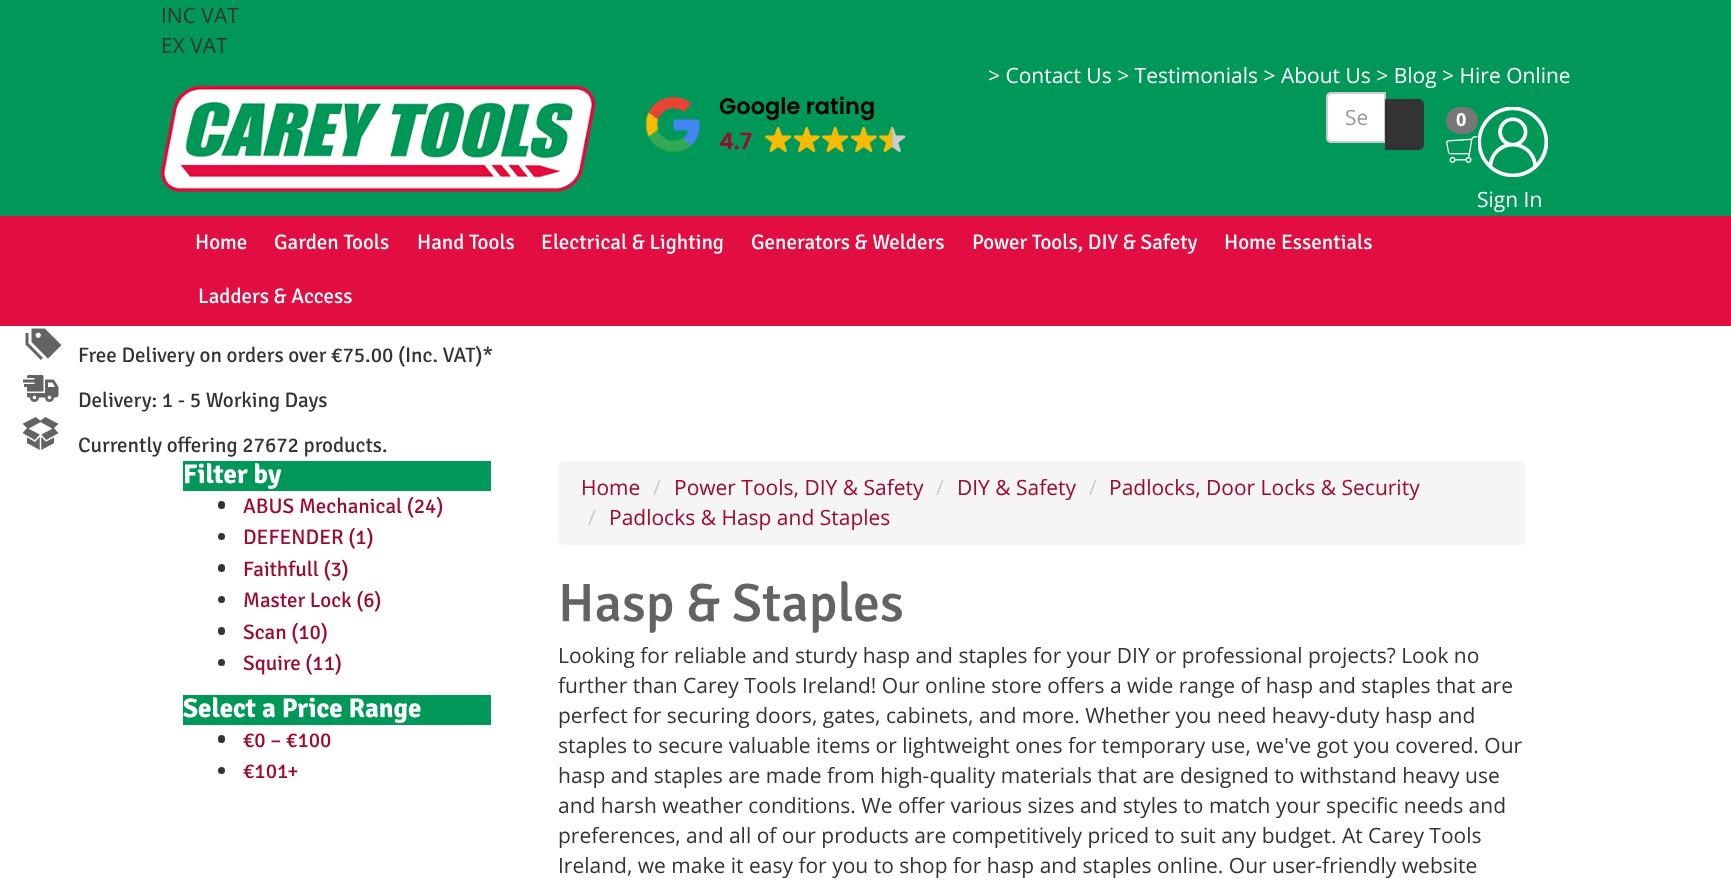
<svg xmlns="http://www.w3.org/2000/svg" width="1731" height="894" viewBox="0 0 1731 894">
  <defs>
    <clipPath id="clip1"><path d="M1346 104h21v28H1346z"/></clipPath>
  </defs>
  <rect width="100%" height="100%" fill="#fff"/>
  <path d="M0 0h1731v216H0z" fill="#009858"/>
  <image x="160" y="85" width="436" height="107" href="img/1.png"/>
  <image x="645" y="96" width="55" height="57" href="img/2.png"/>
  <image x="765" y="126" width="27" height="26" href="img/3.png"/>
  <image x="794" y="126" width="26" height="26" href="img/4.png"/>
  <image x="822" y="126" width="27" height="26" href="img/3.png"/>
  <image x="851" y="126" width="26" height="26" href="img/4.png"/>
  <image x="879" y="126" width="27" height="26" href="img/5.png"/>
  <path d="M1332 92H1386V143H1332C1328.5 143 1326 140.5 1326 137V98C1326 94.5 1328.5 92 1332 92Z" fill="#fff"/>
  <path d="M1332 94H1384V141H1385V93H1333C1330 93 1328 95 1328 98V99C1328 97 1330 94 1332 94Z" fill="#ececec"/>
  <path d="M1332 93H1385V142H1332C1329 142 1327 140 1327 137V98C1327 95 1329 93 1332 93Z" fill="none" stroke="#ccc" stroke-width="2"/>
  <path d="M1385 99H1418C1421.5 99 1424 101.5 1424 105V144C1424 147.5 1421.5 150 1418 150H1385Z" fill="#333"/>
  <rect x="1446" y="107" width="32" height="27" rx="13.5" fill="#777"/>
  <image x="1446" y="135" width="32" height="28" href="img/6.png"/>
  <image x="1478" y="107" width="70" height="70" href="img/7.png"/>
  <path d="M0 216h1731v110H0z" fill="#e20e41"/>
  <image x="25" y="328" width="37" height="32" href="img/8.png"/>
  <image x="23" y="375" width="36" height="27" href="img/9.png"/>
  <image x="23" y="417" width="36" height="33" href="img/10.png"/>
  <path d="M183 461h308v30H183z" fill="#009858"/>
  <rect x="218" y="501" width="7" height="8" rx="3.5" fill="#333"/>
  <circle cx="221.5" cy="536.5" r="3.5" fill="#333"/>
  <rect x="218" y="564" width="7" height="8" rx="3.5" fill="#333"/>
  <circle cx="221.5" cy="599.5" r="3.5" fill="#333"/>
  <rect x="218" y="627" width="7" height="8" rx="3.5" fill="#333"/>
  <circle cx="221.5" cy="662.5" r="3.5" fill="#333"/>
  <path d="M183 695h308v30H183z" fill="#009858"/>
  <rect x="218" y="735" width="7" height="8" rx="3.5" fill="#333"/>
  <circle cx="221.5" cy="770.5" r="3.5" fill="#333"/>
  <rect x="558" y="461" width="968" height="84" rx="6" fill="#f5f5f5"/>
  <g font-family="Open Sans" font-size="21" fill="#333">
    <text x="161" y="23">INC VAT</text>
    <text x="161" y="53">EX VAT</text>
  </g>
  <text x="988" y="83" font-family="Open Sans" font-size="21" fill="#fff">&gt; Contact Us &gt; Testimonials &gt; About Us &gt; Blog &gt; Hire Online</text>
  <text x="719" y="114" font-family="Poppins" font-size="22.5" font-weight="600" fill="#000">Google rating</text>
  <text x="719" y="149" font-family="Poppins" font-size="22.5" font-weight="600" fill="#9c0a2d">4.7</text>
  <g clip-path="url(#clip1)">
    <text x="1345" y="125" font-family="Open Sans" font-size="21" fill="#999">Se</text>
  </g>
  <text x="1456" y="126" font-family="Open Sans" font-size="18" font-weight="bold" fill="#fff">0</text>
  <text x="1477" y="207" font-family="Open Sans" font-size="21" fill="#fff">Sign In</text>
  <g font-family="Signika" font-size="21" fill="#fff">
    <text x="195" y="249">Home</text>
    <text x="274" y="249">Garden Tools</text>
    <text x="417" y="249">Hand Tools</text>
    <text x="541" y="249">Electrical &amp; Lighting</text>
    <text x="751" y="249">Generators &amp; Welders</text>
    <text x="972" y="249">Power Tools, DIY &amp; Safety</text>
    <text x="1224" y="249">Home Essentials</text>
    <text x="198" y="303">Ladders &amp; Access</text>
  </g>
  <g font-family="Signika" font-size="21" fill="#333">
    <text x="78" y="362">Free Delivery on orders over €75.00 (Inc. VAT)*</text>
    <text x="78" y="407">Delivery: 1 - 5 Working Days</text>
    <text x="78" y="452">Currently offering 27672 products.</text>
  </g>
  <text x="183" y="483" font-family="Signika" font-size="27" font-weight="bold" fill="#fff">Filter by</text>
  <g font-family="Signika" font-size="21" fill="#9c0a2d">
    <text x="243" y="513">ABUS Mechanical (24)</text>
    <text x="243" y="544">DEFENDER (1)</text>
    <text x="243" y="576">Faithfull (3)</text>
    <text x="243" y="607">Master Lock (6)</text>
    <text x="243" y="639">Scan (10)</text>
    <text x="243" y="670">Squire (11)</text>
  </g>
  <text x="183" y="717" font-family="Signika" font-size="27" font-weight="bold" fill="#fff">Select a Price Range</text>
  <g font-family="Signika" font-size="21" fill="#9c0a2d">
    <text x="243" y="747">€0 – €100</text>
    <text x="243" y="778">€101+</text>
  </g>
  <text x="581" y="495" font-family="Open Sans" font-size="21" fill="#9c0a2d">Home</text>
  <text x="653" y="495" font-family="Open Sans" font-size="21" fill="#ccc">/</text>
  <text x="674" y="495" font-family="Open Sans" font-size="21" fill="#9c0a2d">Power Tools, DIY &amp; Safety</text>
  <text x="936" y="495" font-family="Open Sans" font-size="21" fill="#ccc">/</text>
  <text x="957" y="495" font-family="Open Sans" font-size="21" fill="#9c0a2d">DIY &amp; Safety</text>
  <text x="1089" y="495" font-family="Open Sans" font-size="21" fill="#ccc">/</text>
  <text x="1109" y="495" font-family="Open Sans" font-size="21" fill="#9c0a2d">Padlocks, Door Locks &amp; Security</text>
  <text x="588" y="525" font-family="Open Sans" font-size="21" fill="#ccc">/</text>
  <text x="609" y="525" font-family="Open Sans" font-size="21" fill="#9c0a2d">Padlocks &amp; Hasp and Staples</text>
  <text x="558" y="621" font-family="Signika" font-size="54" font-weight="500" fill="#636363">Hasp &amp; Staples</text>
  <g font-family="Open Sans" font-size="21" fill="#333">
    <text x="558" y="663">Looking for reliable and sturdy hasp and staples for your DIY or professional projects? Look no</text>
    <text x="558" y="693">further than Carey Tools Ireland! Our online store offers a wide range of hasp and staples that are</text>
    <text x="558" y="723">perfect for securing doors, gates, cabinets, and more. Whether you need heavy-duty hasp and</text>
    <text x="558" y="753">staples to secure valuable items or lightweight ones for temporary use, we've got you covered. Our</text>
    <text x="558" y="783">hasp and staples are made from high-quality materials that are designed to withstand heavy use</text>
    <text x="558" y="813">and harsh weather conditions. We offer various sizes and styles to match your specific needs and</text>
    <text x="558" y="843">preferences, and all of our products are competitively priced to suit any budget. At Carey Tools</text>
    <text x="558" y="873">Ireland, we make it easy for you to shop for hasp and staples online. Our user-friendly website</text>
  </g>
</svg>
